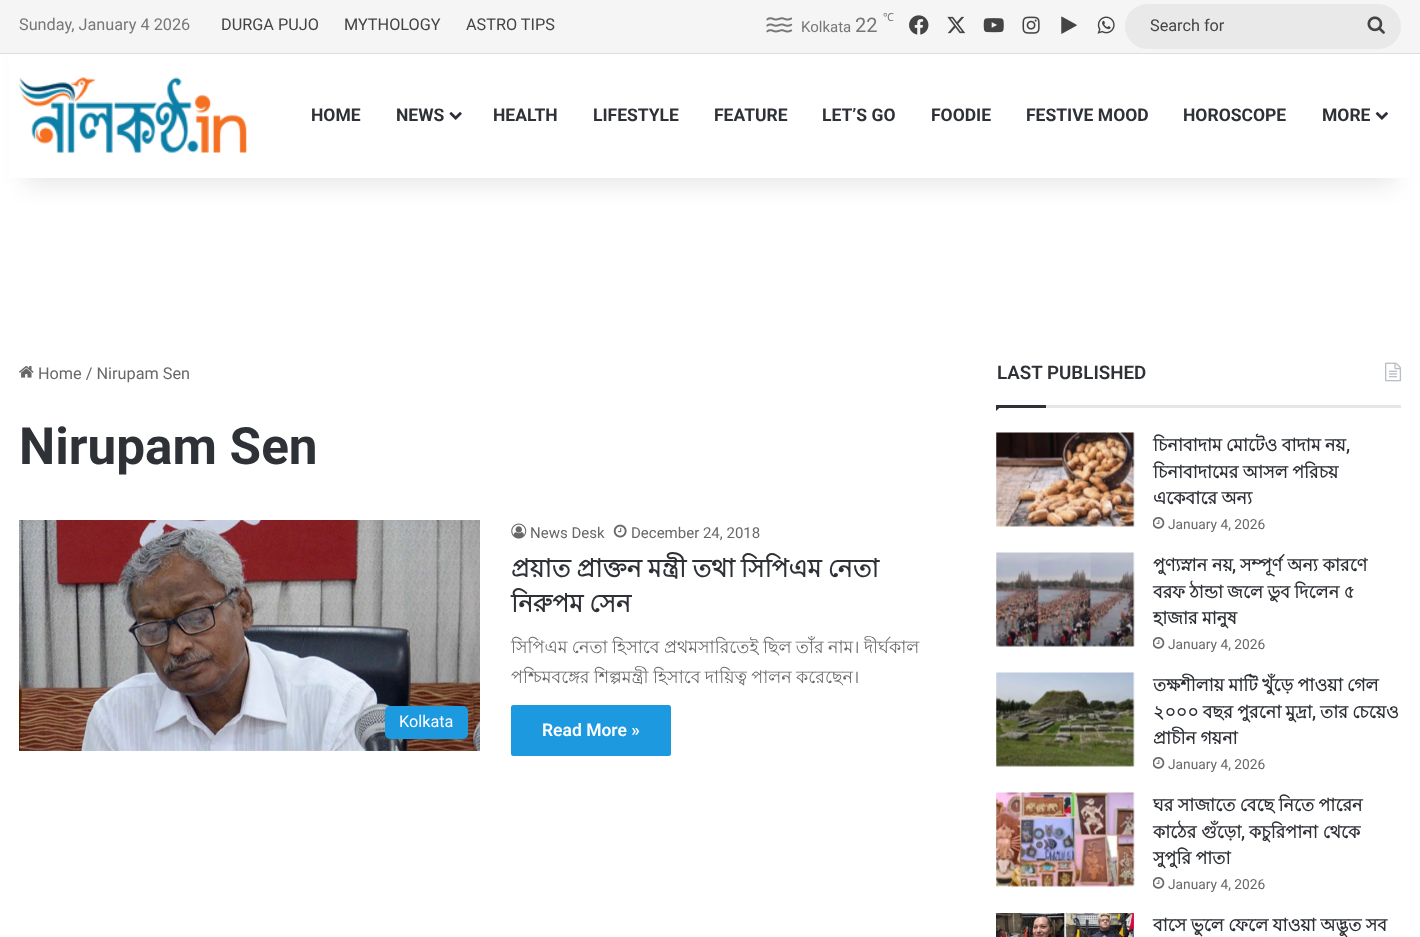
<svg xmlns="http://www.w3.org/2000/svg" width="1420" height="937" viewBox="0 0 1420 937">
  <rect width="100%" height="100%" fill="#fff"/>
  <path d="M25 56h1370v128H25z" fill="#0000001a" filter="blur(12.5px)"/>
  <path d="M9 54h1402v124H9z" fill="#fff"/>
  <path d="M0 0h1420v53H0z" fill="#f5f5f5"/>
  <path d="M0 53h1420v1H0z" fill="#ddd"/>
  <image x="766" y="17" width="27" height="16" href="img/1.png"/>
  <image x="909" y="15" width="20" height="20" href="img/2.png"/>
  <image x="947" y="16" width="19" height="18" href="img/3.png"/>
  <image x="983" y="18" width="21" height="15" href="img/4.png"/>
  <image x="1022" y="16" width="18" height="18" href="img/5.png"/>
  <image x="1061" y="16" width="16" height="18" href="img/6.png"/>
  <image x="1097" y="16" width="18" height="18" href="img/7.png"/>
  <rect x="1125" y="4" width="276" height="45" rx="22.5" fill="#e9e9e9"/>
  <image x="1367" y="16" width="18" height="18" href="img/8.png"/>
  <image x="18" y="77" width="229" height="76" href="img/9.png"/>
  <image x="449" y="112" width="13" height="8" href="img/10.png"/>
  <image x="1375" y="112" width="13" height="8" href="img/11.png"/>
  <image x="19" y="366" width="15" height="12" href="img/12.png"/>
  <image x="19" y="520" width="461" height="231" href="img/13.png"/>
  <rect x="385" y="706" width="83" height="33" rx="5" fill="#1d99e0"/>
  <image x="511" y="523" width="16" height="16" href="img/14.png"/>
  <image x="613" y="524" width="14" height="14" href="img/15.png"/>
  <rect x="511" y="705" width="160" height="51" rx="2.5" fill="#1d99e0"/>
  <path d="M1046 405h355v3H1046z" fill="#e6e6e6"/>
  <image x="1385" y="362" width="17" height="20" href="img/16.png"/>
  <path d="M996 405H1002.5L996 411Z" fill="#2e3136"/>
  <path d="M996 405h50v3H996z" fill="#2e3136"/>
  <image x="996" y="432" width="139" height="95" href="img/17.png"/>
  <image x="1153" y="517" width="12" height="12" href="img/18.png"/>
  <image x="996" y="552" width="139" height="95" href="img/19.png"/>
  <image x="1153" y="637" width="12" height="12" href="img/18.png"/>
  <image x="996" y="672" width="139" height="95" href="img/20.png"/>
  <image x="1153" y="757" width="12" height="12" href="img/18.png"/>
  <image x="996" y="792" width="139" height="95" href="img/21.png"/>
  <image x="1153" y="877" width="12" height="12" href="img/18.png"/>
  <image x="996" y="913" width="138" height="24" href="img/22.png"/>
  <text x="19" y="30" font-family="Roboto" font-size="16.25" fill="#777">Sunday, January 4 2026</text>
  <g font-family="Roboto" font-size="16.25" fill="#444">
    <text x="221" y="30">DURGA PUJO</text>
    <text x="344" y="30">MYTHOLOGY</text>
    <text x="466" y="30">ASTRO TIPS</text>
  </g>
  <text x="801" y="32" font-family="Roboto" font-size="15" fill="#777">Kolkata</text>
  <text x="855" y="32" font-family="Roboto" font-size="20" fill="#777">22</text>
  <text x="883" y="21" font-family="Noto Sans" font-size="11" fill="#777">℃</text>
  <text x="1150" y="31" font-family="Roboto" font-size="16.25" fill="#444">Search for</text>
  <g font-family="Roboto" font-size="17.5" font-weight="bold" fill="#2e3136">
    <text x="311" y="121">HOME</text>
    <text x="396" y="121">NEWS</text>
    <text x="493" y="121">HEALTH</text>
    <text x="593" y="121">LIFESTYLE</text>
    <text x="714" y="121">FEATURE</text>
    <text x="822" y="121">LET’S GO</text>
    <text x="931" y="121">FOODIE</text>
    <text x="1026" y="121">FESTIVE MOOD</text>
    <text x="1183" y="121">HOROSCOPE</text>
    <text x="1322" y="121">MORE</text>
  </g>
  <text x="38" y="379" font-family="Roboto" font-size="16.25" fill="#686868">Home / Nirupam Sen</text>
  <text x="19" y="464" font-family="Roboto" font-size="51.25" font-weight="bold" fill="#2e3136">Nirupam Sen</text>
  <text x="399" y="727" font-family="Roboto" font-size="16.25" fill="#fff">Kolkata</text>
  <g font-family="Roboto" font-size="15" fill="#686868">
    <text x="530" y="538">News Desk</text>
    <text x="631" y="538">December 24, 2018</text>
  </g>
  <g font-family="Lohit Bengali" font-size="25" font-weight="bold" fill="#2e3136">
    <text x="511" y="577" word-spacing="-0.75">প্রয়াত প্রাক্তন মন্ত্রী তথা সিপিএম নেতা</text>
    <text x="511" y="612" word-spacing="-0.75">নিরুপম সেন</text>
  </g>
  <g font-family="Lohit Bengali" font-size="17.5" fill="#686868">
    <text x="511" y="653" word-spacing="-0.5">সিপিএম নেতা হিসাবে প্রথমসারিতেই ছিল তাঁর নাম। দীর্ঘকাল</text>
    <text x="511" y="683" word-spacing="-0.5">পশ্চিমবঙ্গের শিল্পমন্ত্রী হিসাবে দায়িত্ব পালন করেছেন।</text>
  </g>
  <text x="542" y="736" font-family="Roboto" font-size="17.5" font-weight="600" fill="#fff">Read More »</text>
  <text x="997" y="379" font-family="Roboto" font-size="18.75" font-weight="600" fill="#2e3136">LAST PUBLISHED</text>
  <text x="1153" y="451" word-spacing="-0.5" font-family="Lohit Bengali" font-size="17.5" font-weight="bold" fill="#2e3136">চিনাবাদাম মোটেও বাদাম নয়</text>
  <text x="1346" y="451" font-family="Roboto" font-size="17.5" font-weight="600" fill="#2e3136">,</text>
  <g font-family="Lohit Bengali" font-size="17.5" font-weight="bold" fill="#2e3136">
    <text x="1153" y="478" word-spacing="-0.5">চিনাবাদামের আসল পরিচয়</text>
    <text x="1153" y="504" word-spacing="-0.5">একেবারে অন্য</text>
  </g>
  <text x="1168" y="529" font-family="Roboto" font-size="13.75" fill="#686868">January 4, 2026</text>
  <text x="1153" y="571" font-family="Lohit Bengali" font-size="17.5" font-weight="bold" fill="#2e3136">পুণ্যস্নান নয়</text>
  <text x="1232" y="571" font-family="Roboto" font-size="17.5" font-weight="600" fill="#2e3136">,</text>
  <g font-family="Lohit Bengali" font-size="17.5" font-weight="bold" fill="#2e3136">
    <text x="1240" y="571">সম্পূর্ণ অন্য কারণে</text>
    <text x="1153" y="598" word-spacing="-0.5">বরফ ঠান্ডা জলে ডুব দিলেন ৫</text>
    <text x="1153" y="624" word-spacing="-0.5">হাজার মানুষ</text>
  </g>
  <text x="1168" y="649" font-family="Roboto" font-size="13.75" fill="#686868">January 4, 2026</text>
  <g font-family="Lohit Bengali" font-size="17.5" font-weight="bold" fill="#2e3136">
    <text x="1153" y="691" word-spacing="-0.5">তক্ষশীলায় মাটি খুঁড়ে পাওয়া গেল</text>
    <text x="1153" y="718" word-spacing="-0.5">২০০০ বছর পুরনো মুদ্রা</text>
  </g>
  <text x="1312" y="718" font-family="Roboto" font-size="17.5" font-weight="600" fill="#2e3136">,</text>
  <g font-family="Lohit Bengali" font-size="17.5" font-weight="bold" fill="#2e3136">
    <text x="1320" y="718" word-spacing="-0.5">তার চেয়েও</text>
    <text x="1153" y="744" word-spacing="-0.5">প্রাচীন গয়না</text>
  </g>
  <text x="1168" y="769" font-family="Roboto" font-size="13.75" fill="#686868">January 4, 2026</text>
  <g font-family="Lohit Bengali" font-size="17.5" font-weight="bold" fill="#2e3136">
    <text x="1153" y="811" word-spacing="-0.5">ঘর সাজাতে বেছে নিতে পারেন</text>
    <text x="1153" y="838">কাঠের গুঁড়ো</text>
  </g>
  <text x="1241" y="838" font-family="Roboto" font-size="17.5" font-weight="600" fill="#2e3136">,</text>
  <g font-family="Lohit Bengali" font-size="17.5" font-weight="bold" fill="#2e3136">
    <text x="1249" y="838">কচুরিপানা থেকে</text>
    <text x="1153" y="864" word-spacing="-0.5">সুপুরি পাতা</text>
  </g>
  <text x="1168" y="889" font-family="Roboto" font-size="13.75" fill="#686868">January 4, 2026</text>
  <text x="1153" y="931" word-spacing="-0.5" font-family="Lohit Bengali" font-size="17.5" font-weight="bold" fill="#2e3136">বাসে ভুলে ফেলে যাওয়া অদ্ভুত সব</text>
</svg>
